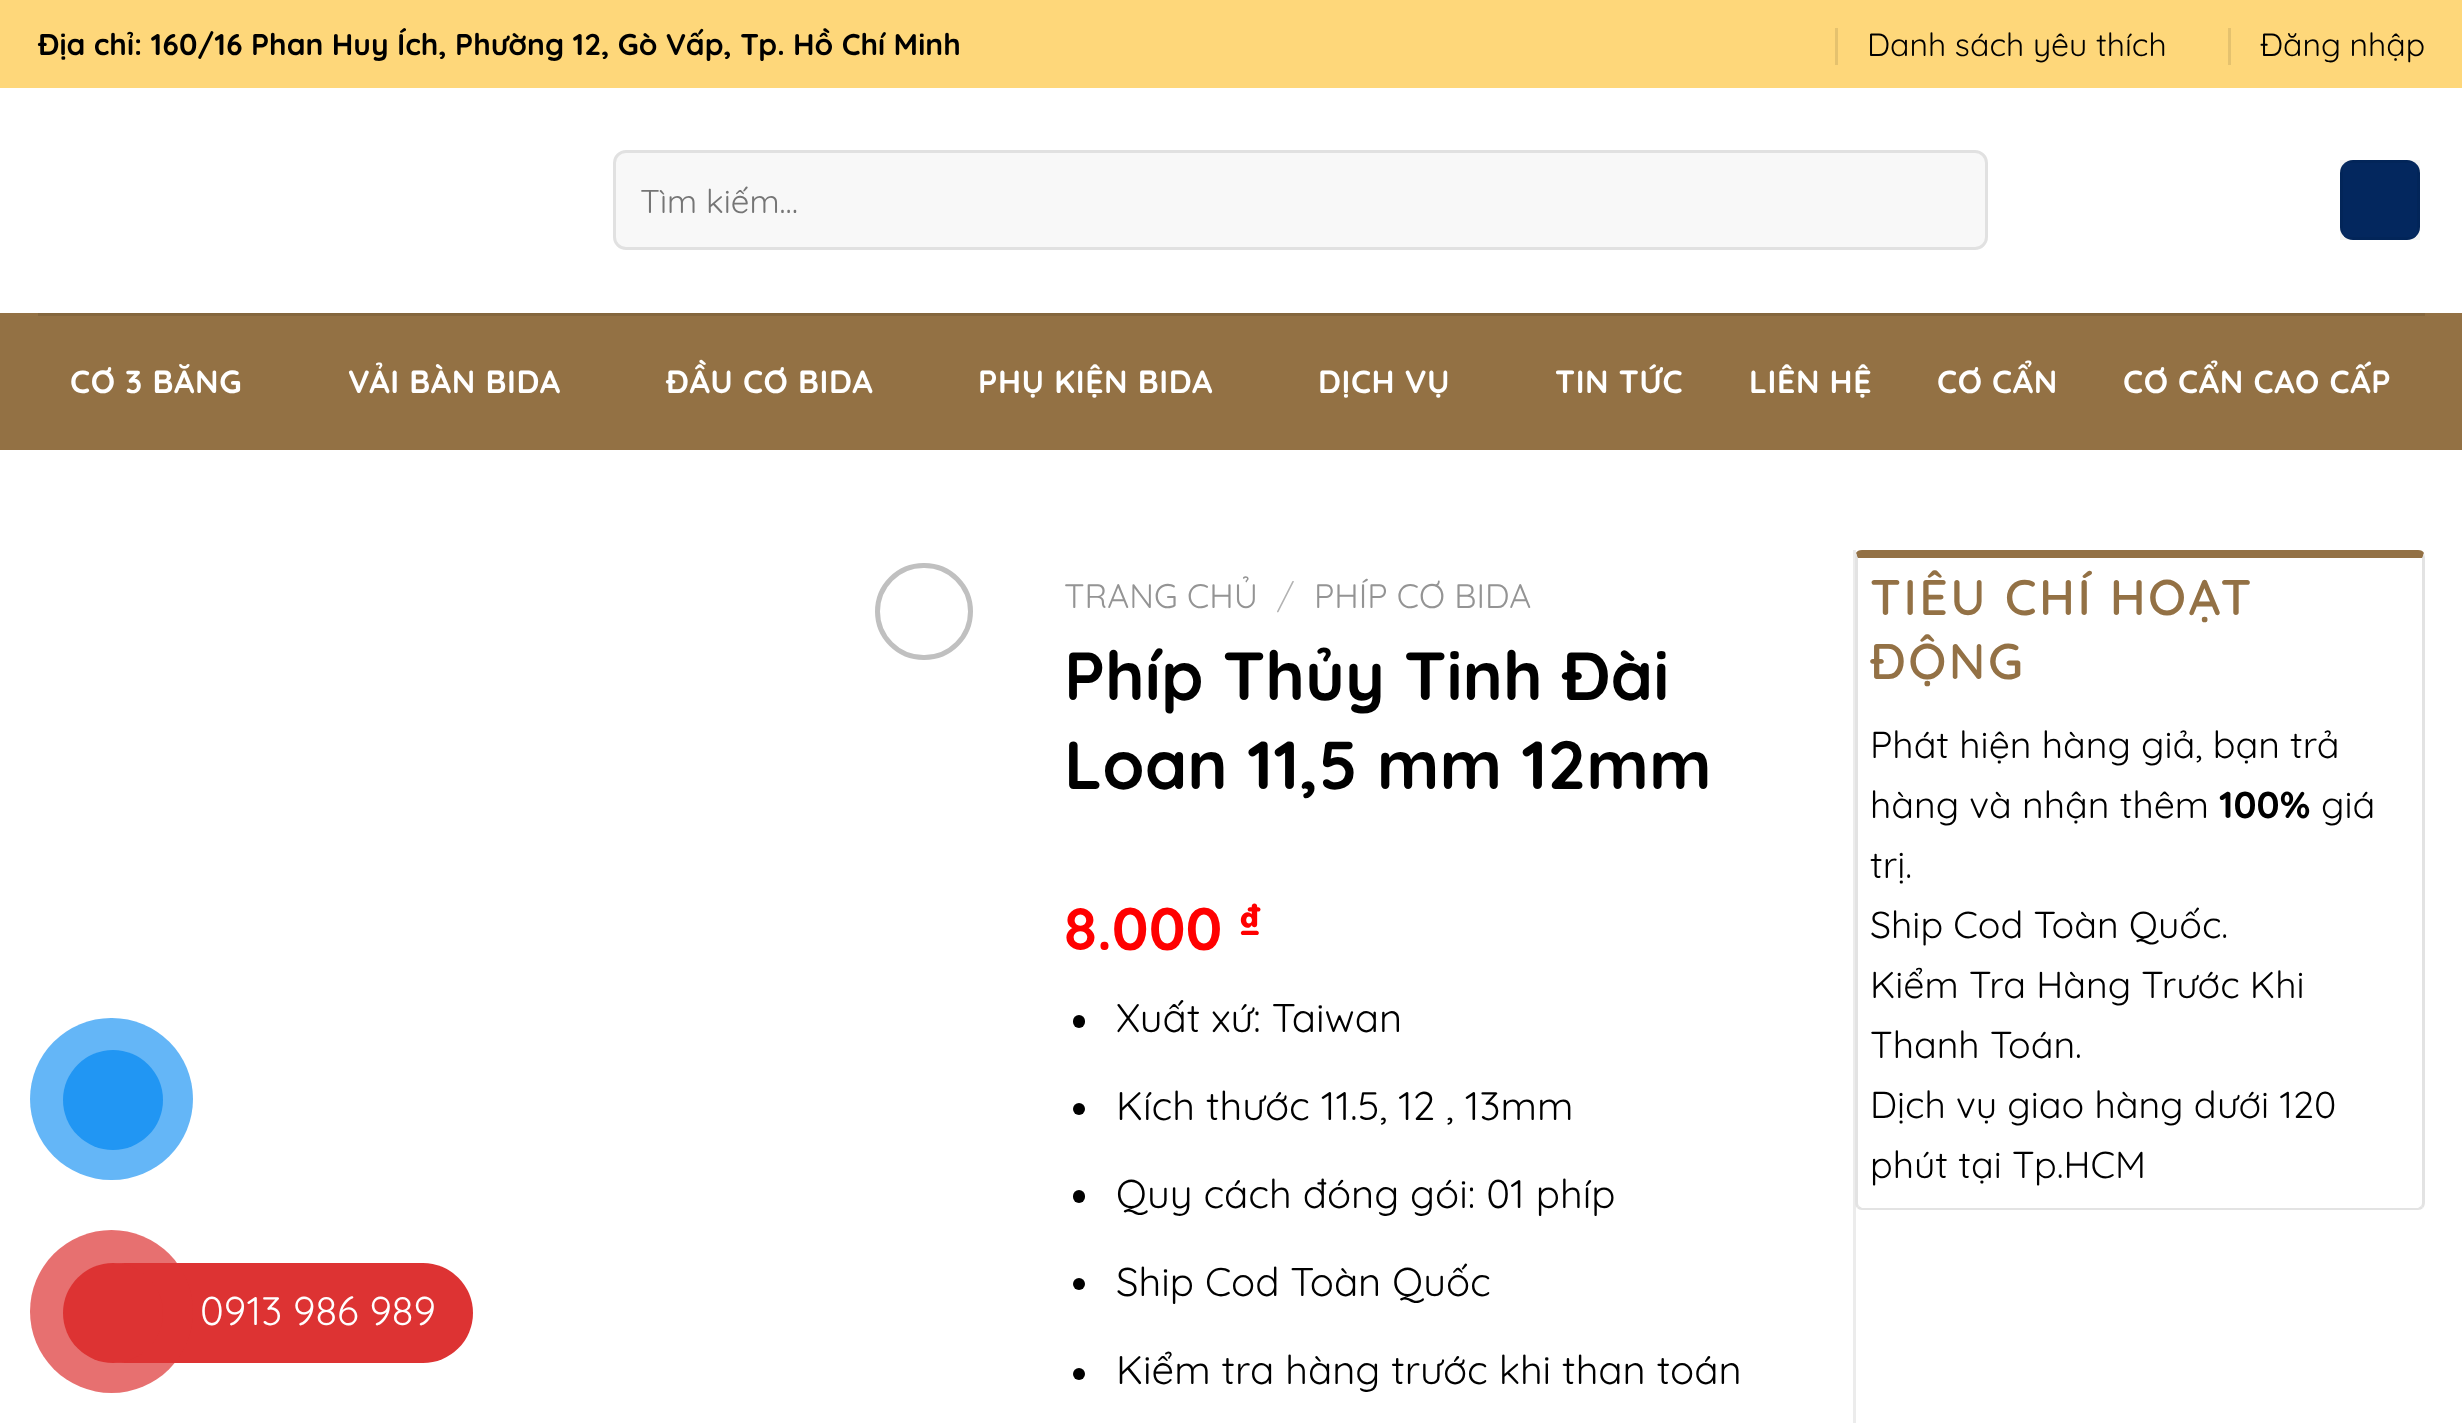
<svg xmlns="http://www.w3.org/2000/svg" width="2462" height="1423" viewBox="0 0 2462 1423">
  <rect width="100%" height="100%" fill="#fff"/>
  <path d="M0 0h2462v88H0z" fill="#fed77a"/>
  <path d="M1835 28h3v37H1835z" fill="#e5c26e"/>
  <path d="M2228 28h3v37H2228z" fill="#e5c26e"/>
  <rect x="613" y="150" width="1375" height="100" rx="13" fill="#f8f8f8"/>
  <rect x="614.5" y="151.5" width="1372" height="97" rx="11.5" fill="none" stroke="#00000017" stroke-width="3"/>
  <rect x="2340" y="160" width="80" height="80" rx="13" fill="#03275e"/>
  <path d="M2341.5 161.5h77v77H2341.5z" fill="none" stroke="#0000000d" stroke-width="3"/>
  <path d="M0 313h2462v137H0z" fill="#937144"/>
  <path d="M38 313h2387v3H38z" fill="#84663d"/>
  <rect x="877.5" y="565.5" width="93" height="92" rx="46" fill="none" stroke="#c0c0c0" stroke-width="5"/>
  <path d="M1853 550h3v873H1853z" fill="#ececec"/>
  <rect x="1073" y="1015" width="12" height="13" rx="6" fill="#000"/>
  <circle cx="1079" cy="1109" r="6" fill="#000"/>
  <rect x="1073" y="1190" width="12" height="13" rx="6" fill="#000"/>
  <circle cx="1079" cy="1284" r="6" fill="#000"/>
  <circle cx="1079" cy="1374" r="6" fill="#000"/>
  <path d="M1862 550C1859 550 1857 551 1856 553L1858 559V558H2422V559L2424 553C2423 551 2421 550 2418 550Z" fill="#937145"/>
  <path d="M2425 1202V558L2424 553L2422 559V1202C2422 1203 2422 1205 2421 1206L2423 1208C2424 1207 2425 1205 2425 1202Z" fill="#e3e3e3"/>
  <path d="M1862 1210H2418C2420 1210 2422 1209 2423 1208L2421 1206L2418 1208H1862L1859 1206L1857 1208C1858 1209 1860 1210 1862 1210Z" fill="#e3e3e3"/>
  <path d="M1855 558V1202C1855 1205 1856 1207 1857 1208L1859 1206C1858 1205 1858 1203 1858 1202V559L1856 553Z" fill="#e3e3e3"/>
  <rect x="30" y="1018" width="163" height="162" rx="81" fill="#64b6f7"/>
  <circle cx="113" cy="1100" r="50" fill="#2196f3"/>
  <rect x="75" y="1263" width="398" height="100" rx="50" fill="#d33"/>
  <circle cx="111.5" cy="1311.5" r="81.5" fill="#dd3333b3"/>
  <circle cx="113" cy="1313" r="50" fill="#d33"/>
  <text x="38" y="55" font-family="Quicksand" font-size="30" font-weight="bold" fill="#000">Địa chỉ: 160/16 Phan Huy Ích, Phường 12, Gò Vấp, Tp. Hồ Chí Minh</text>
  <g font-family="Quicksand" font-size="32" fill="#000">
    <text x="1867" y="56">Danh sách yêu thích</text>
    <text x="2260" y="56">Đăng nhập</text>
  </g>
  <text x="640" y="213" font-family="Quicksand" font-size="33" fill="#757575">Tìm kiếm…</text>
  <g font-family="Quicksand" font-size="32" font-weight="bold" letter-spacing="0.6" fill="#fff">
    <text x="70" y="393">CƠ 3 BĂNG</text>
    <text x="348" y="393">VẢI BÀN BIDA</text>
    <text x="666" y="393">ĐẦU CƠ BIDA</text>
    <text x="978" y="393">PHỤ KIỆN BIDA</text>
    <text x="1318" y="393">DỊCH VỤ</text>
    <text x="1555" y="393">TIN TỨC</text>
    <text x="1749" y="393">LIÊN HỆ</text>
    <text x="1937" y="393">CƠ CẨN</text>
    <text x="2123" y="393">CƠ CẨN CAO CẤP</text>
  </g>
  <text x="1064" y="608" font-family="Quicksand" font-size="34" fill="#949494">TRANG CHỦ</text>
  <text x="1277" y="608" font-family="Quicksand" font-size="34" font-weight="300" fill="#b2b2b2">/</text>
  <text x="1314" y="608" font-family="Quicksand" font-size="34" fill="#949494">PHÍP CƠ BIDA</text>
  <g font-family="Quicksand" font-size="68" font-weight="bold" fill="#000">
    <text x="1064" y="700">Phíp Thủy Tinh Đài</text>
    <text x="1064" y="789">Loan 11,5 mm 12mm</text>
  </g>
  <text x="1064" y="950" font-family="Quicksand" font-size="60" font-weight="bold" fill="#f00">8.000</text>
  <text x="1239" y="935" font-family="Quicksand" font-size="45" font-weight="bold" fill="#f00">₫</text>
  <g font-family="Quicksand" font-size="40" fill="#000">
    <text x="1116" y="1032">Xuất xứ: Taiwan</text>
    <text x="1116" y="1120">Kích thước 11.5, 12 , 13mm</text>
    <text x="1116" y="1208">Quy cách đóng gói: 01 phíp</text>
    <text x="1116" y="1296">Ship Cod Toàn Quốc</text>
    <text x="1116" y="1384">Kiểm tra hàng trước khi than toán</text>
  </g>
  <g font-family="Quicksand" font-size="50" font-weight="600" letter-spacing="2.5" fill="#937145">
    <text x="1870" y="615">TIÊU CHÍ HOẠT</text>
    <text x="1870" y="679">ĐỘNG</text>
  </g>
  <g font-family="Quicksand" font-size="37.5" fill="#000">
    <text x="1870" y="758">Phát hiện hàng giả, bạn trả</text>
    <text x="1870" y="818">hàng và nhận thêm</text>
  </g>
  <text x="2219" y="818" font-family="Quicksand" font-size="37.5" font-weight="bold" fill="#000">100%</text>
  <g font-family="Quicksand" font-size="37.5" fill="#000">
    <text x="2321" y="818">giá</text>
    <text x="1870" y="878">trị.</text>
    <text x="1870" y="938">Ship Cod Toàn Quốc.</text>
    <text x="1870" y="998">Kiểm Tra Hàng Trước Khi</text>
    <text x="1870" y="1058">Thanh Toán.</text>
    <text x="1870" y="1118">Dịch vụ giao hàng dưới 120</text>
    <text x="1870" y="1178">phút tại Tp.HCM</text>
  </g>
  <text x="200" y="1325" font-family="Quicksand" font-size="40" fill="#fff">0913 986 989</text>
</svg>
